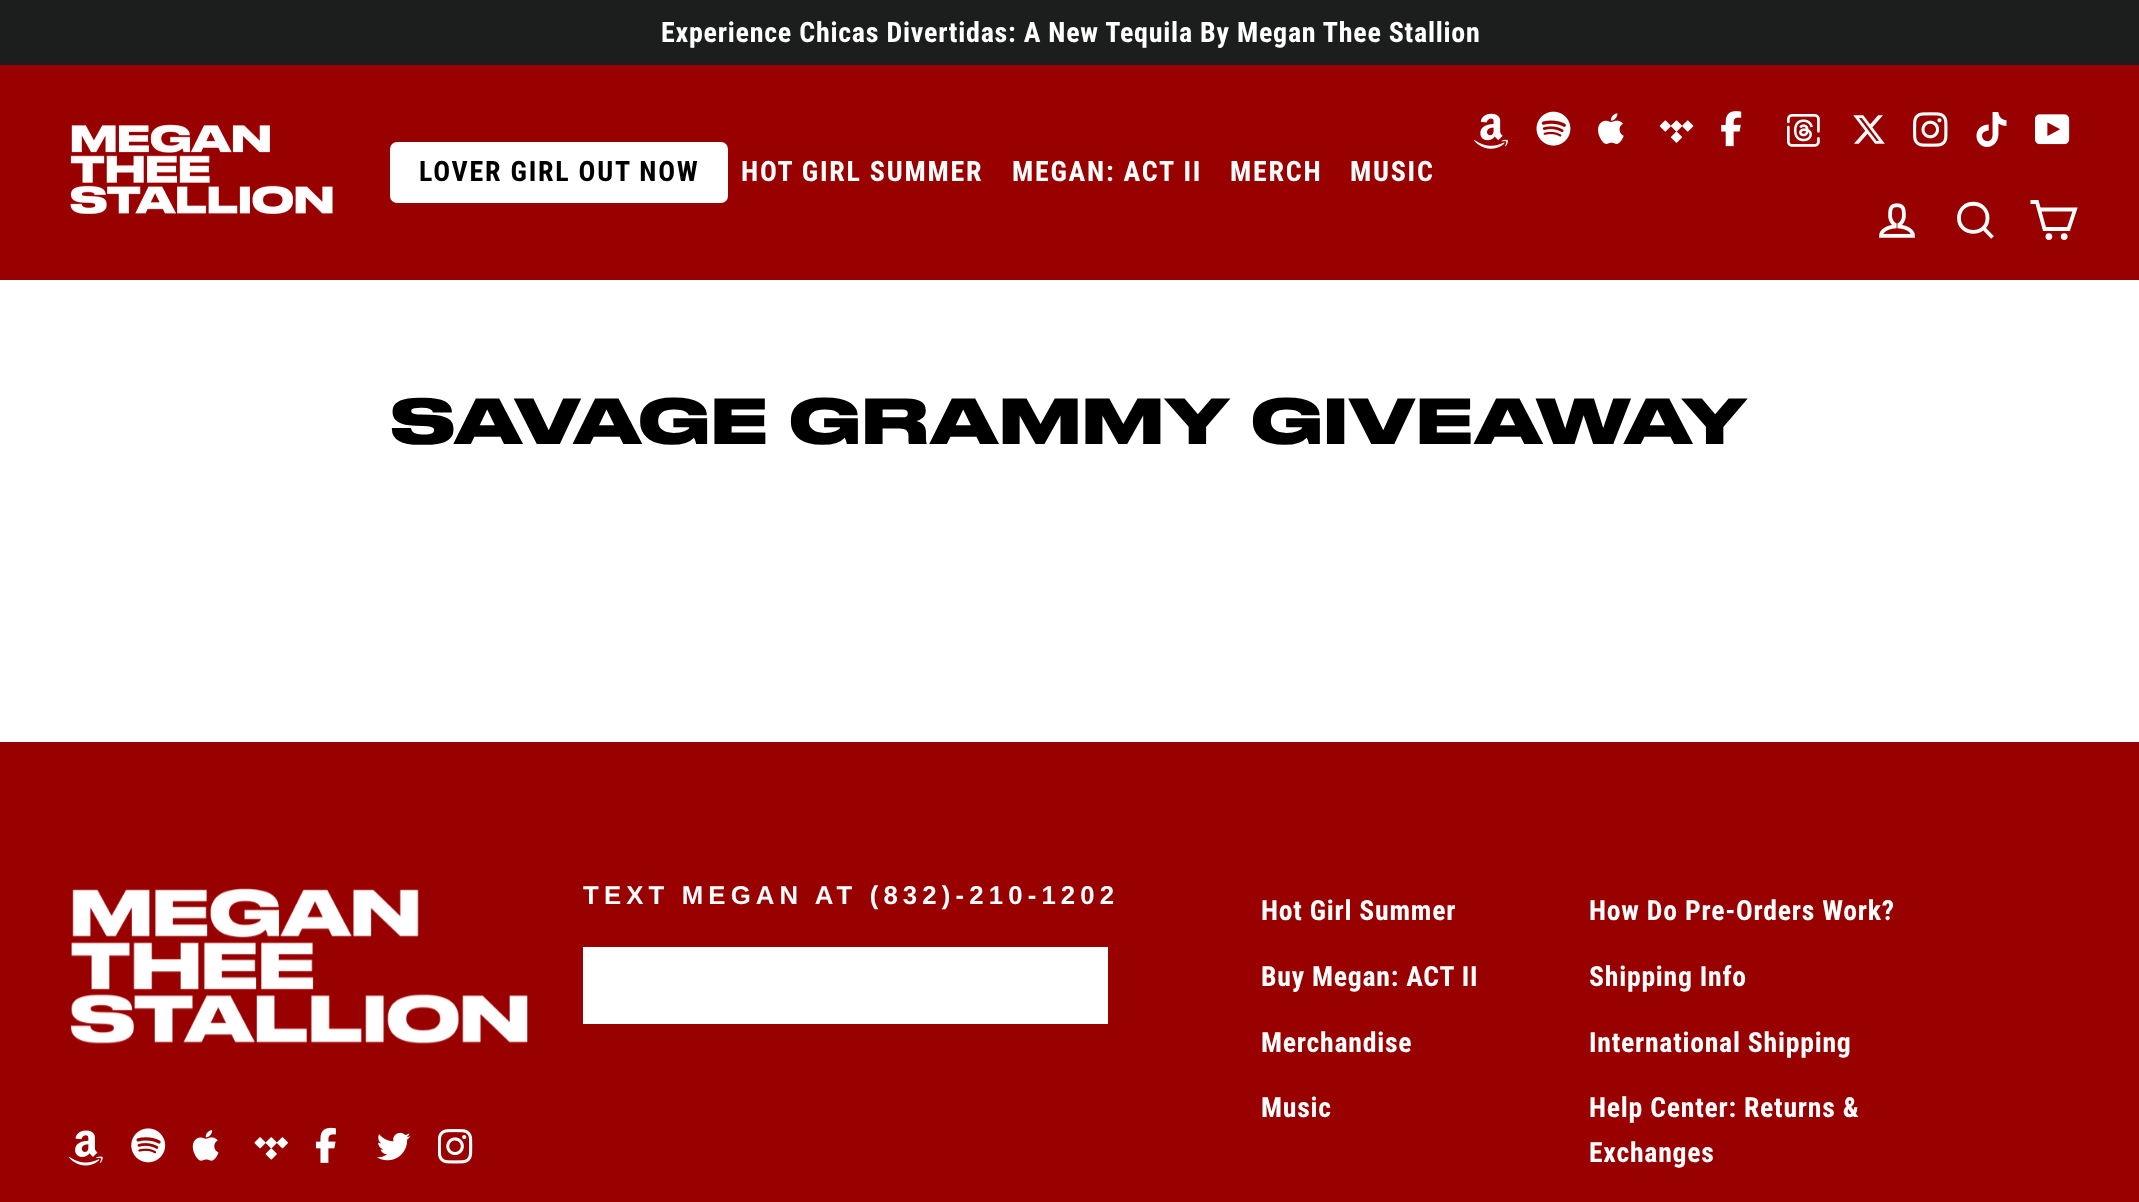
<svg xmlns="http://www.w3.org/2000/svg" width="2139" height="1202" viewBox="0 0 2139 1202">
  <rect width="100%" height="100%" fill="#fff"/>
  <path d="M0 0h2139v65H0z" fill="#1c1d1d"/>
  <path d="M0 65h2139v215H0z" fill="#900"/>
  <image x="70" y="124" width="263" height="90" href="img/1.png"/>
  <rect x="390" y="142" width="338" height="61" rx="7" fill="#fff"/>
  <image x="1474" y="113" width="34" height="36" href="img/2.png"/>
  <image x="1536" y="111" width="35" height="35" href="img/3.png"/>
  <image x="1598" y="113" width="26" height="31" href="img/4.png"/>
  <image x="1659" y="120" width="35" height="23" href="img/5.png"/>
  <image x="1721" y="111" width="21" height="36" href="img/6.png"/>
  <image x="1787" y="114" width="33" height="33" href="img/7.png"/>
  <image x="1853" y="115" width="32" height="29" href="img/8.png"/>
  <image x="1913" y="112" width="35" height="35" href="img/9.png"/>
  <image x="1976" y="112" width="31" height="35" href="img/10.png"/>
  <image x="2035" y="114" width="35" height="31" href="img/11.png"/>
  <image x="1879" y="203" width="36" height="35" href="img/12.png"/>
  <path d="M1987.5 218C1987.5 236.5 1959 236.5 1959 218C1959 199 1987.5 199 1987.5 218ZM1992.5 237.5L1983.5 228" fill="none" stroke="#fff" stroke-width="3.8"/>
  <path d="M2039 209.5H2075L2068.5 229H2044.5L2037 202H2030.5" fill="none" stroke="#fff" stroke-width="3.8"/>
  <circle cx="2048.9" cy="236.6" r="1.5" fill="#fff" stroke="#fff" stroke-width="3.8"/>
  <circle cx="2064.2" cy="236.6" r="1.5" fill="#fff" stroke="#fff" stroke-width="3.8"/>
  <path d="M0 742h2139v460H0z" fill="#900"/>
  <image x="70" y="888" width="458" height="156" href="img/13.png"/>
  <image x="68" y="1130" width="35" height="36" href="img/14.png"/>
  <image x="131" y="1128" width="35" height="35" href="img/15.png"/>
  <image x="192" y="1130" width="27" height="31" href="img/16.png"/>
  <image x="254" y="1137" width="34" height="23" href="img/17.png"/>
  <image x="315" y="1127" width="21" height="36" href="img/18.png"/>
  <image x="377" y="1132" width="34" height="29" href="img/19.png"/>
  <image x="438" y="1129" width="35" height="35" href="img/20.png"/>
  <path d="M583 947h525v77H583z" fill="#fff"/>
  <text x="661" y="42" font-family="Roboto Condensed" font-size="28" font-weight="bold" letter-spacing="0.75" fill="#fff">Experience Chicas Divertidas: A New Tequila By Megan Thee Stallion</text>
  <text x="419" y="181" font-family="Roboto Condensed" font-size="28" font-weight="bold" letter-spacing="1.75" fill="#000">LOVER GIRL OUT NOW</text>
  <g font-family="Roboto Condensed" font-size="28" font-weight="bold" letter-spacing="1.75" fill="#fff">
    <text x="741" y="181">HOT GIRL SUMMER</text>
    <text x="1012" y="181">MEGAN: ACT II</text>
    <text x="1230" y="181">MERCH</text>
    <text x="1350" y="181">MUSIC</text>
  </g>
  <text x="391" y="444" font-family="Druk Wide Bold" font-size="61.25" font-weight="bold" letter-spacing="1.75" fill="#000">SAVAGE GRAMMY GIVEAWAY</text>
  <text x="583" y="904" font-family="Liberation Sans" font-size="25.75" font-weight="bold" letter-spacing="5.15" fill="#fff">TEXT MEGAN AT (832)-210-1202</text>
  <g font-family="Roboto Condensed" font-size="27.75" font-weight="bold" letter-spacing="0.75" fill="#fff">
    <text x="1261" y="920">Hot Girl Summer</text>
    <text x="1261" y="986">Buy Megan: ACT II</text>
    <text x="1261" y="1052">Merchandise</text>
    <text x="1261" y="1117">Music</text>
    <text x="1589" y="920">How Do Pre-Orders Work?</text>
    <text x="1589" y="986">Shipping Info</text>
    <text x="1589" y="1052">International Shipping</text>
    <text x="1589" y="1117">Help Center: Returns &amp;</text>
    <text x="1589" y="1162">Exchanges</text>
  </g>
</svg>
